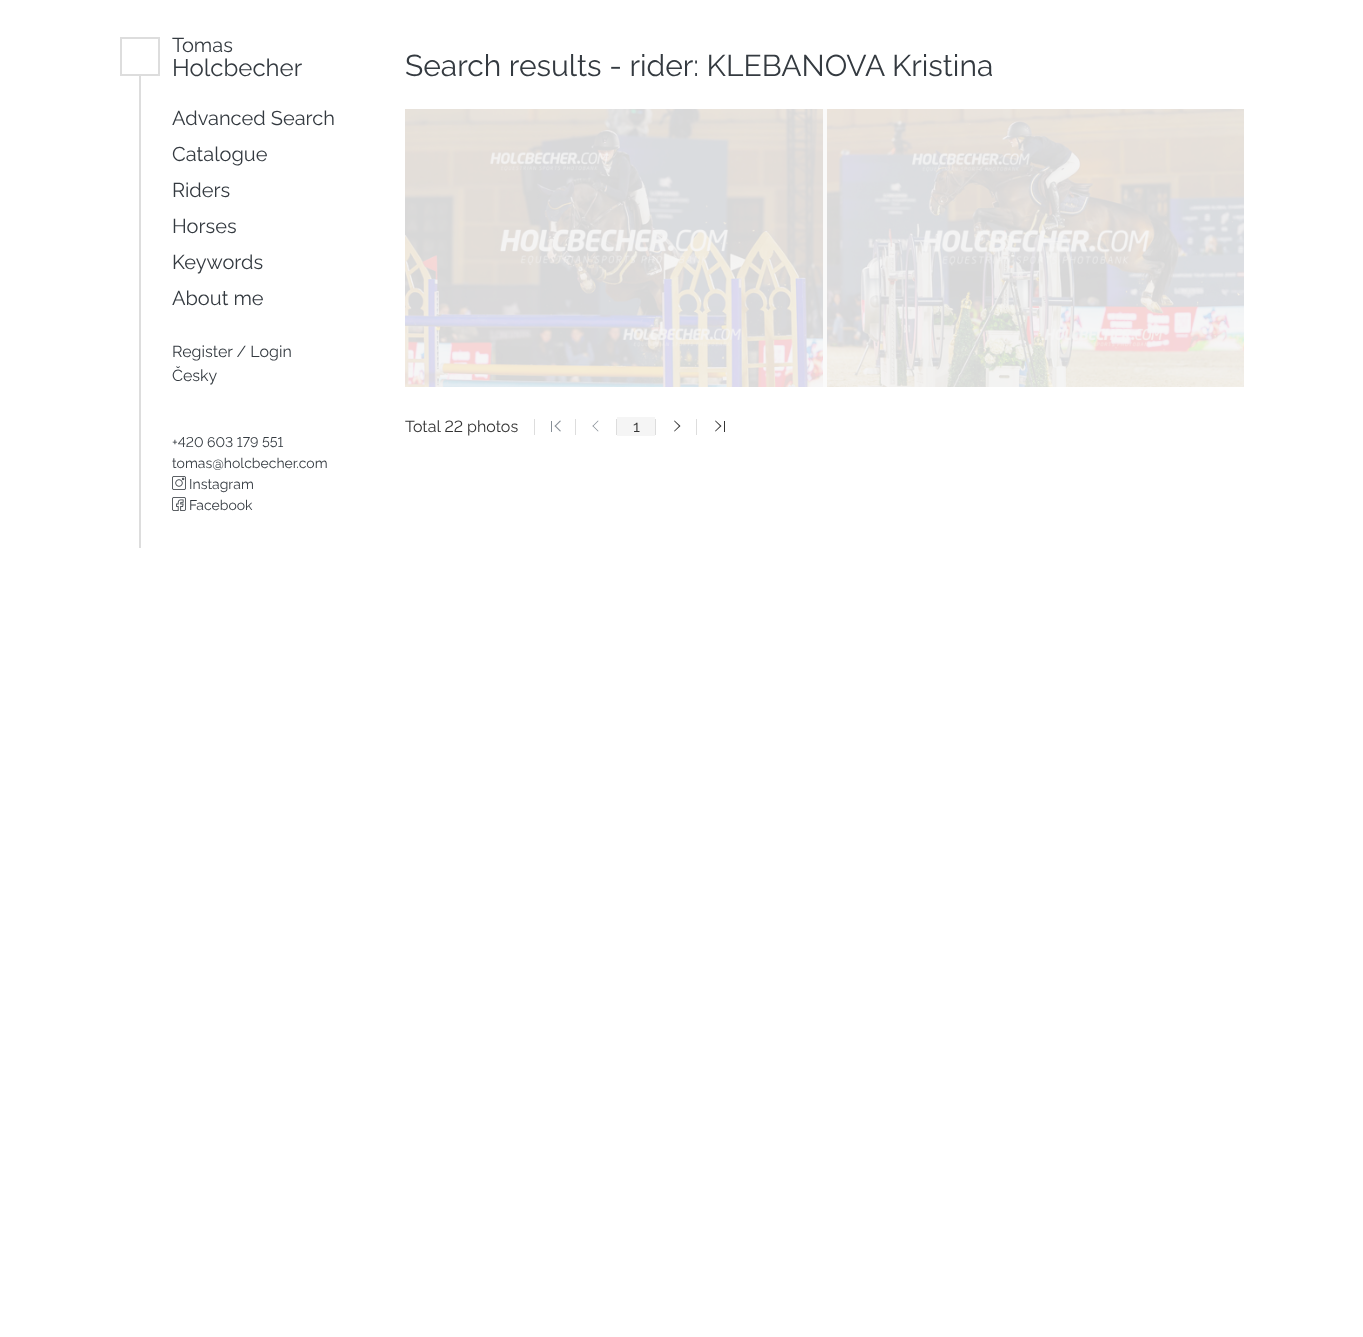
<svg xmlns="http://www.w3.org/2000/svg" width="1363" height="1337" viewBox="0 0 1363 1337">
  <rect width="100%" height="100%" fill="#fff"/>
  <path d="M823 109h4v278H823z" fill="#fafafa"/>
  <path d="M121 38h38v37H121z" fill="none" stroke="#ddd" stroke-width="2"/>
  <path d="M139 76h2v472H139z" fill="#ddd"/>
  <image x="172" y="476" width="14" height="14" href="img/1.png"/>
  <image x="172" y="497" width="14" height="14" href="img/2.png"/>
  <image x="405" y="109" width="418" height="278" href="img/3.png"/>
  <image x="827" y="109" width="417" height="278" href="img/4.png"/>
  <path d="M534 419h1v16H534z" fill="#ddd"/>
  <path d="M575 419h1v16H575z" fill="#ddd"/>
  <path d="M551 421h1v11H551z" fill="#868e96"/>
  <path d="M554.5 426L560 420.5L561 421L555.5 426.5Z" fill="#868e96"/>
  <path d="M554.5 426L555.5 425.5L561 431L560 431.5Z" fill="#868e96"/>
  <path d="M616 419h1v16H616z" fill="#ddd"/>
  <path d="M592.5 426L598 420.5L598.5 421L593 426.5Z" fill="#868e96"/>
  <path d="M592.5 426L593 425.5L598.5 431L598 431.5Z" fill="#868e96"/>
  <path d="M696 419h1v16H696z" fill="#ddd"/>
  <path d="M674.5 420.5L680.5 426H679L674 421ZM680.5 426L674.5 431.5L674 431L679 426ZM715.5 420.5L721.5 426H720L715 421Z" fill="#333"/>
  <path d="M655 419h1v16H655z" fill="#ddd"/>
  <path d="M617 417h38v19H617z" fill="#f5f5f5"/>
  <path d="M721.5 426L715.5 431.5L715 431L720 426Z" fill="#333"/>
  <path d="M724 421h1v11H724z" fill="#333"/>
  <text x="172" y="52" font-family="Raleway" font-size="20" font-weight="100" fill="#343a40">Tomas</text>
  <text x="172" y="76" font-family="Raleway" font-size="24" font-weight="100" fill="#343a40">Holcbecher</text>
  <g font-family="Raleway" font-size="20" font-weight="100" fill="#343a40">
    <text x="172" y="125">Advanced Search</text>
    <text x="172" y="161">Catalogue</text>
    <text x="172" y="197">Riders</text>
    <text x="172" y="233">Horses</text>
    <text x="172" y="269">Keywords</text>
    <text x="172" y="305">About me</text>
  </g>
  <g font-family="Raleway" font-size="16" font-weight="100" fill="#343a40">
    <text x="172" y="357">Register / Login</text>
    <text x="172" y="381">Česky</text>
  </g>
  <text x="172" y="447" font-family="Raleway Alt" font-size="14" font-weight="100" fill="#343a40">+420 603 179 551</text>
  <g font-family="Raleway" font-size="14" font-weight="100" fill="#343a40">
    <text x="172" y="468">tomas@holcbecher.com</text>
    <text x="189" y="489">Instagram</text>
    <text x="189" y="510">Facebook</text>
  </g>
  <text x="405" y="76" font-family="Raleway" font-size="30" font-weight="100" fill="#343a40">Search results - rider: KLEBANOVA Kristina</text>
  <text x="405" y="432" font-family="Raleway Alt" font-size="16" font-weight="100" fill="#333">Total 22 photos</text>
  <text x="633" y="432" font-family="Raleway" font-size="16" font-weight="100" fill="#333">1</text>
</svg>
